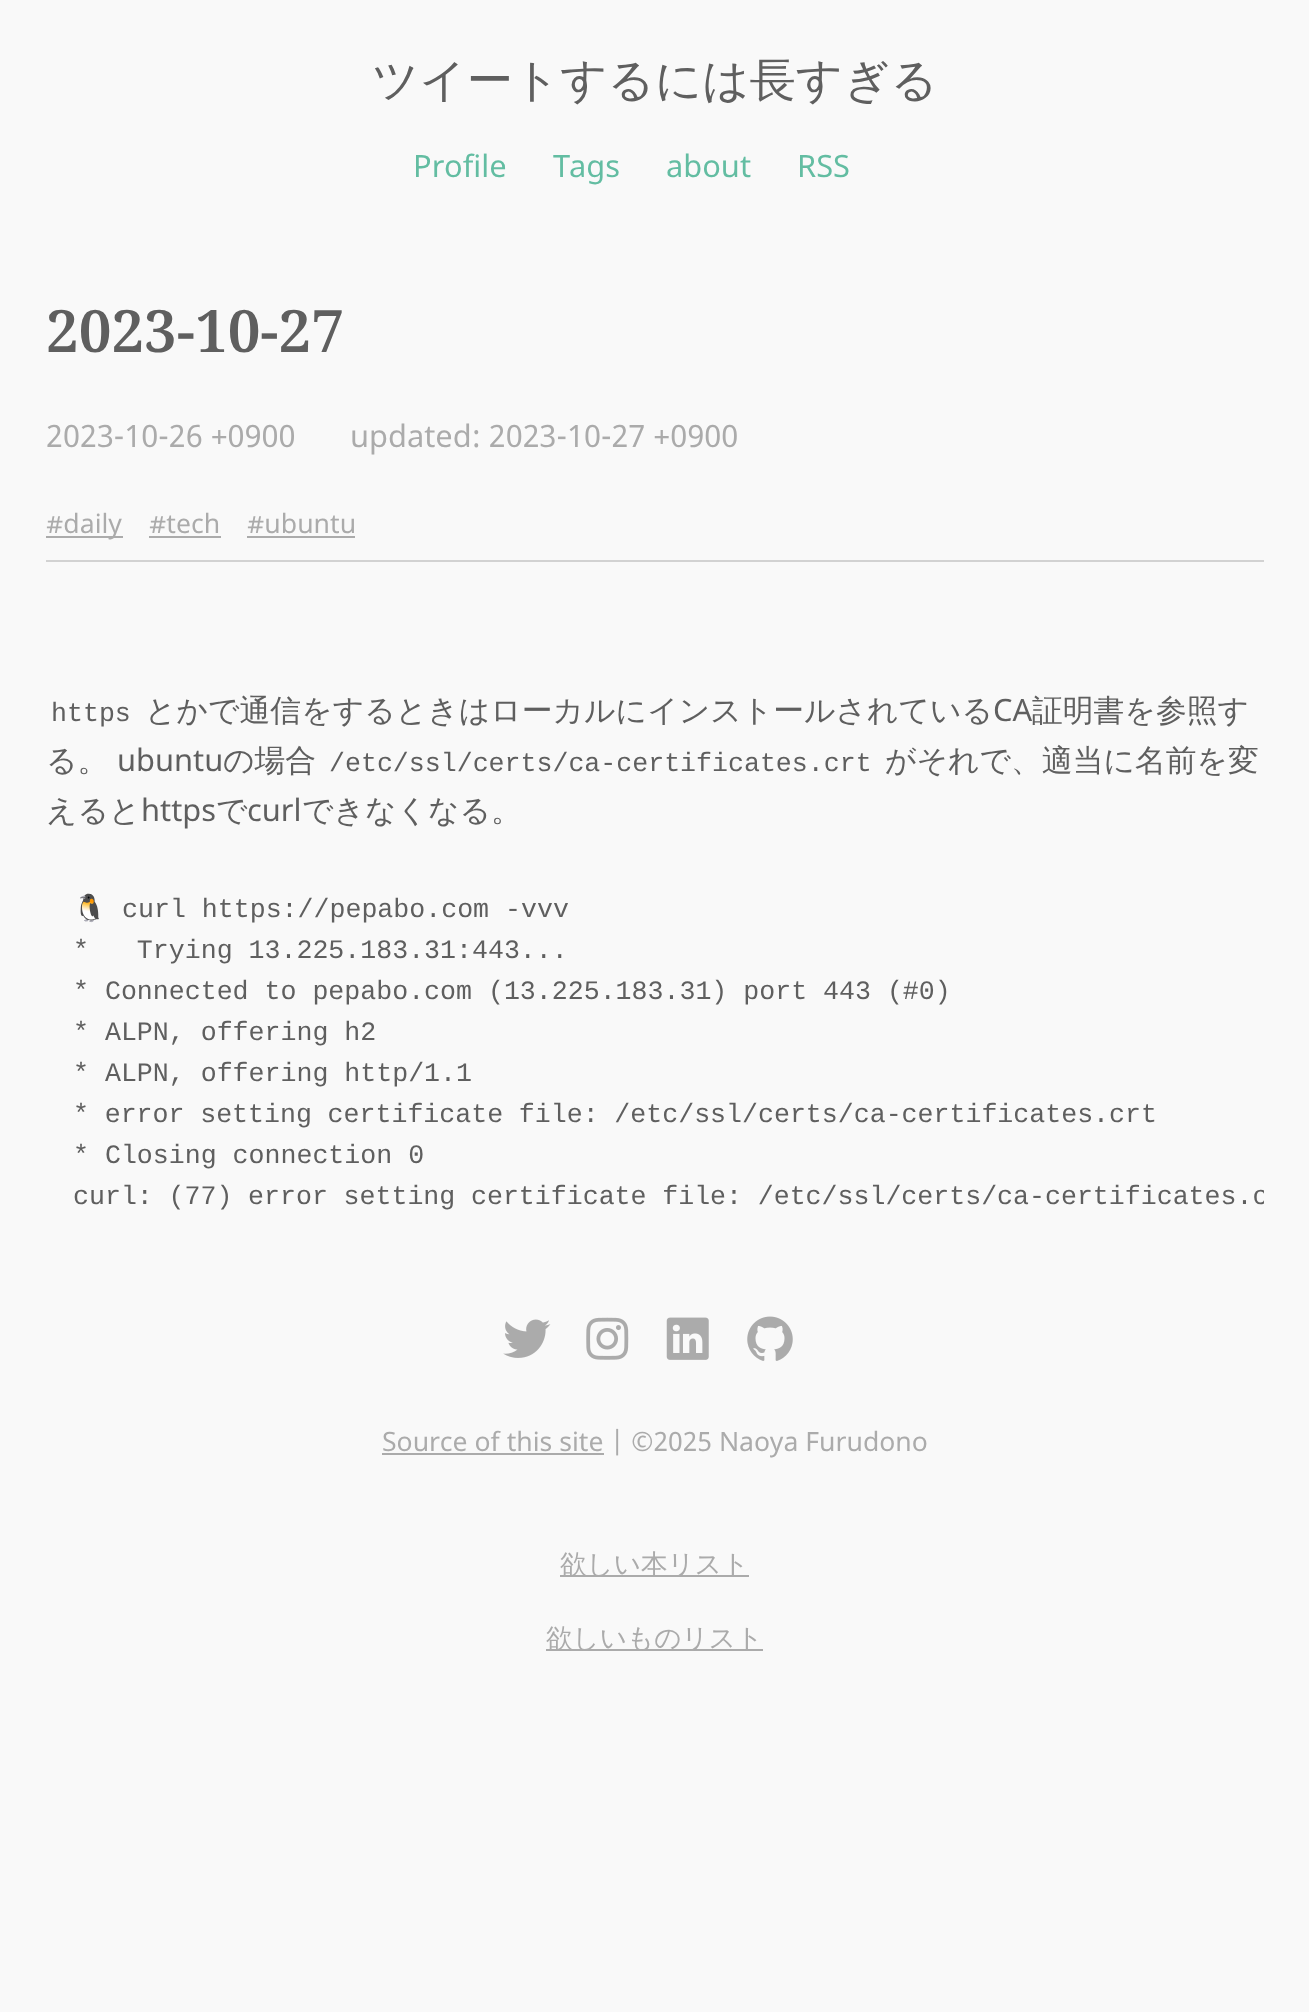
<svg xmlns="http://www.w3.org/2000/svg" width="1309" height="2012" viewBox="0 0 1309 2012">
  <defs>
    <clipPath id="clip1"><path d="M46 865h1218v379H46z"/></clipPath>
  </defs>
  <rect width="100%" height="100%" fill="#f9f9f9"/>
  <path d="M46 536h77v2H46z" fill="#ababab"/>
  <path d="M149 536h72v2H149z" fill="#ababab"/>
  <path d="M247 536h108v2H247z" fill="#ababab"/>
  <path d="M46 560h1218v2H46z" fill="#d2d2d2"/>
  <image x="503" y="1319" width="48" height="39" href="img/1.png"/>
  <image x="586" y="1317" width="43" height="43" href="img/2.png"/>
  <image x="666" y="1317" width="43" height="43" href="img/3.png"/>
  <image x="747" y="1316" width="46" height="45" href="img/4.png"/>
  <path d="M382 1453h222v2H382z" fill="#ababab"/>
  <path d="M560 1575h189v2H560z" fill="#ababab"/>
  <path d="M546 1649h217v2H546z" fill="#ababab"/>
  <text x="372" y="96" font-family="WenQuanYi Zen Hei" font-size="46.25" font-weight="500" fill="#5f5f5f">ツイートするには長すぎる</text>
  <g font-family="Noto Sans" font-size="30.8" fill="#63bda2">
    <text x="413" y="177">Profile</text>
    <text x="553" y="177">Tags</text>
    <text x="666" y="177">about</text>
    <text x="797" y="177">RSS</text>
  </g>
  <text x="46" y="352" font-family="Noto Serif" font-size="58.5" font-weight="600" fill="#5f5f5f">2023-10-27</text>
  <g font-family="Noto Sans" font-size="30.8" fill="#ababab">
    <text x="46" y="447">2023-10-26 +0900</text>
    <text x="350" y="447">updated: 2023-10-27 +0900</text>
  </g>
  <g font-family="Noto Sans" font-size="26.6" fill="#ababab">
    <text x="46" y="533">#daily</text>
    <text x="149" y="533">#tech</text>
    <text x="247" y="533">#ubuntu</text>
  </g>
  <text x="51" y="721" font-family="Liberation Mono" font-size="26.6" fill="#5f5f5f">https</text>
  <text x="145" y="721" font-family="WenQuanYi Zen Hei" font-size="30.8" font-weight="500" fill="#5f5f5f">とかで通信をするときはローカルにインストールされている</text>
  <text x="993" y="721" font-family="Noto Sans" font-size="30.8" fill="#5f5f5f">CA</text>
  <g font-family="WenQuanYi Zen Hei" font-size="30.8" font-weight="500" fill="#5f5f5f">
    <text x="1032" y="721">証明書を参照す</text>
    <text x="46" y="771">る。</text>
  </g>
  <text x="117" y="771" font-family="Noto Sans" font-size="30.8" fill="#5f5f5f">ubuntu</text>
  <text x="223" y="771" font-family="WenQuanYi Zen Hei" font-size="30.8" font-weight="500" fill="#5f5f5f">の場合</text>
  <text x="329" y="771" font-family="Liberation Mono" font-size="26.6" fill="#5f5f5f">/etc/ssl/certs/ca-certificates.crt</text>
  <g font-family="WenQuanYi Zen Hei" font-size="30.8" font-weight="500" fill="#5f5f5f">
    <text x="885" y="771">がそれで、適当に名前を変</text>
    <text x="46" y="821">えると</text>
  </g>
  <text x="141" y="821" font-family="Noto Sans" font-size="30.8" fill="#5f5f5f">https</text>
  <text x="216" y="821" font-family="WenQuanYi Zen Hei" font-size="30.8" font-weight="500" fill="#5f5f5f">で</text>
  <text x="247" y="821" font-family="Noto Sans" font-size="30.8" fill="#5f5f5f">curl</text>
  <text x="302" y="821" font-family="WenQuanYi Zen Hei" font-size="30.8" font-weight="500" fill="#5f5f5f">できなくなる。</text>
  <text x="73" y="917" font-family="Noto Color Emoji" font-size="26.6" fill="#5f5f5f">🐧</text>
  <g font-family="Liberation Mono" font-size="26.6" fill="#5f5f5f">
    <text x="122" y="917">curl https://pepabo.com -vvv</text>
    <text x="73" y="958" xml:space="preserve">*   Trying 13.225.183.31:443...</text>
    <text x="73" y="999">* Connected to pepabo.com (13.225.183.31) port 443 (#0)</text>
    <text x="73" y="1040">* ALPN, offering h2</text>
    <text x="73" y="1081">* ALPN, offering http/1.1</text>
    <text x="73" y="1122" word-spacing="-0.25">* error setting certificate file: /etc/ssl/certs/ca-certificates.crt</text>
    <text x="73" y="1163">* Closing connection 0</text>
  </g>
  <g clip-path="url(#clip1)">
    <text x="73" y="1204" word-spacing="-0.25" font-family="Liberation Mono" font-size="26.6" fill="#5f5f5f">curl: (77) error setting certificate file: /etc/ssl/certs/ca-certificates.c</text>
  </g>
  <g font-family="Noto Sans" font-size="26.6" fill="#ababab">
    <text x="382" y="1451">Source of this site</text>
    <text x="610" y="1451">| ©2025 Naoya Furudono</text>
  </g>
  <g font-family="WenQuanYi Zen Hei" font-size="26.6" font-weight="500" fill="#ababab">
    <text x="560" y="1573">欲しい本リスト</text>
    <text x="546" y="1647">欲しいものリスト</text>
  </g>
</svg>
